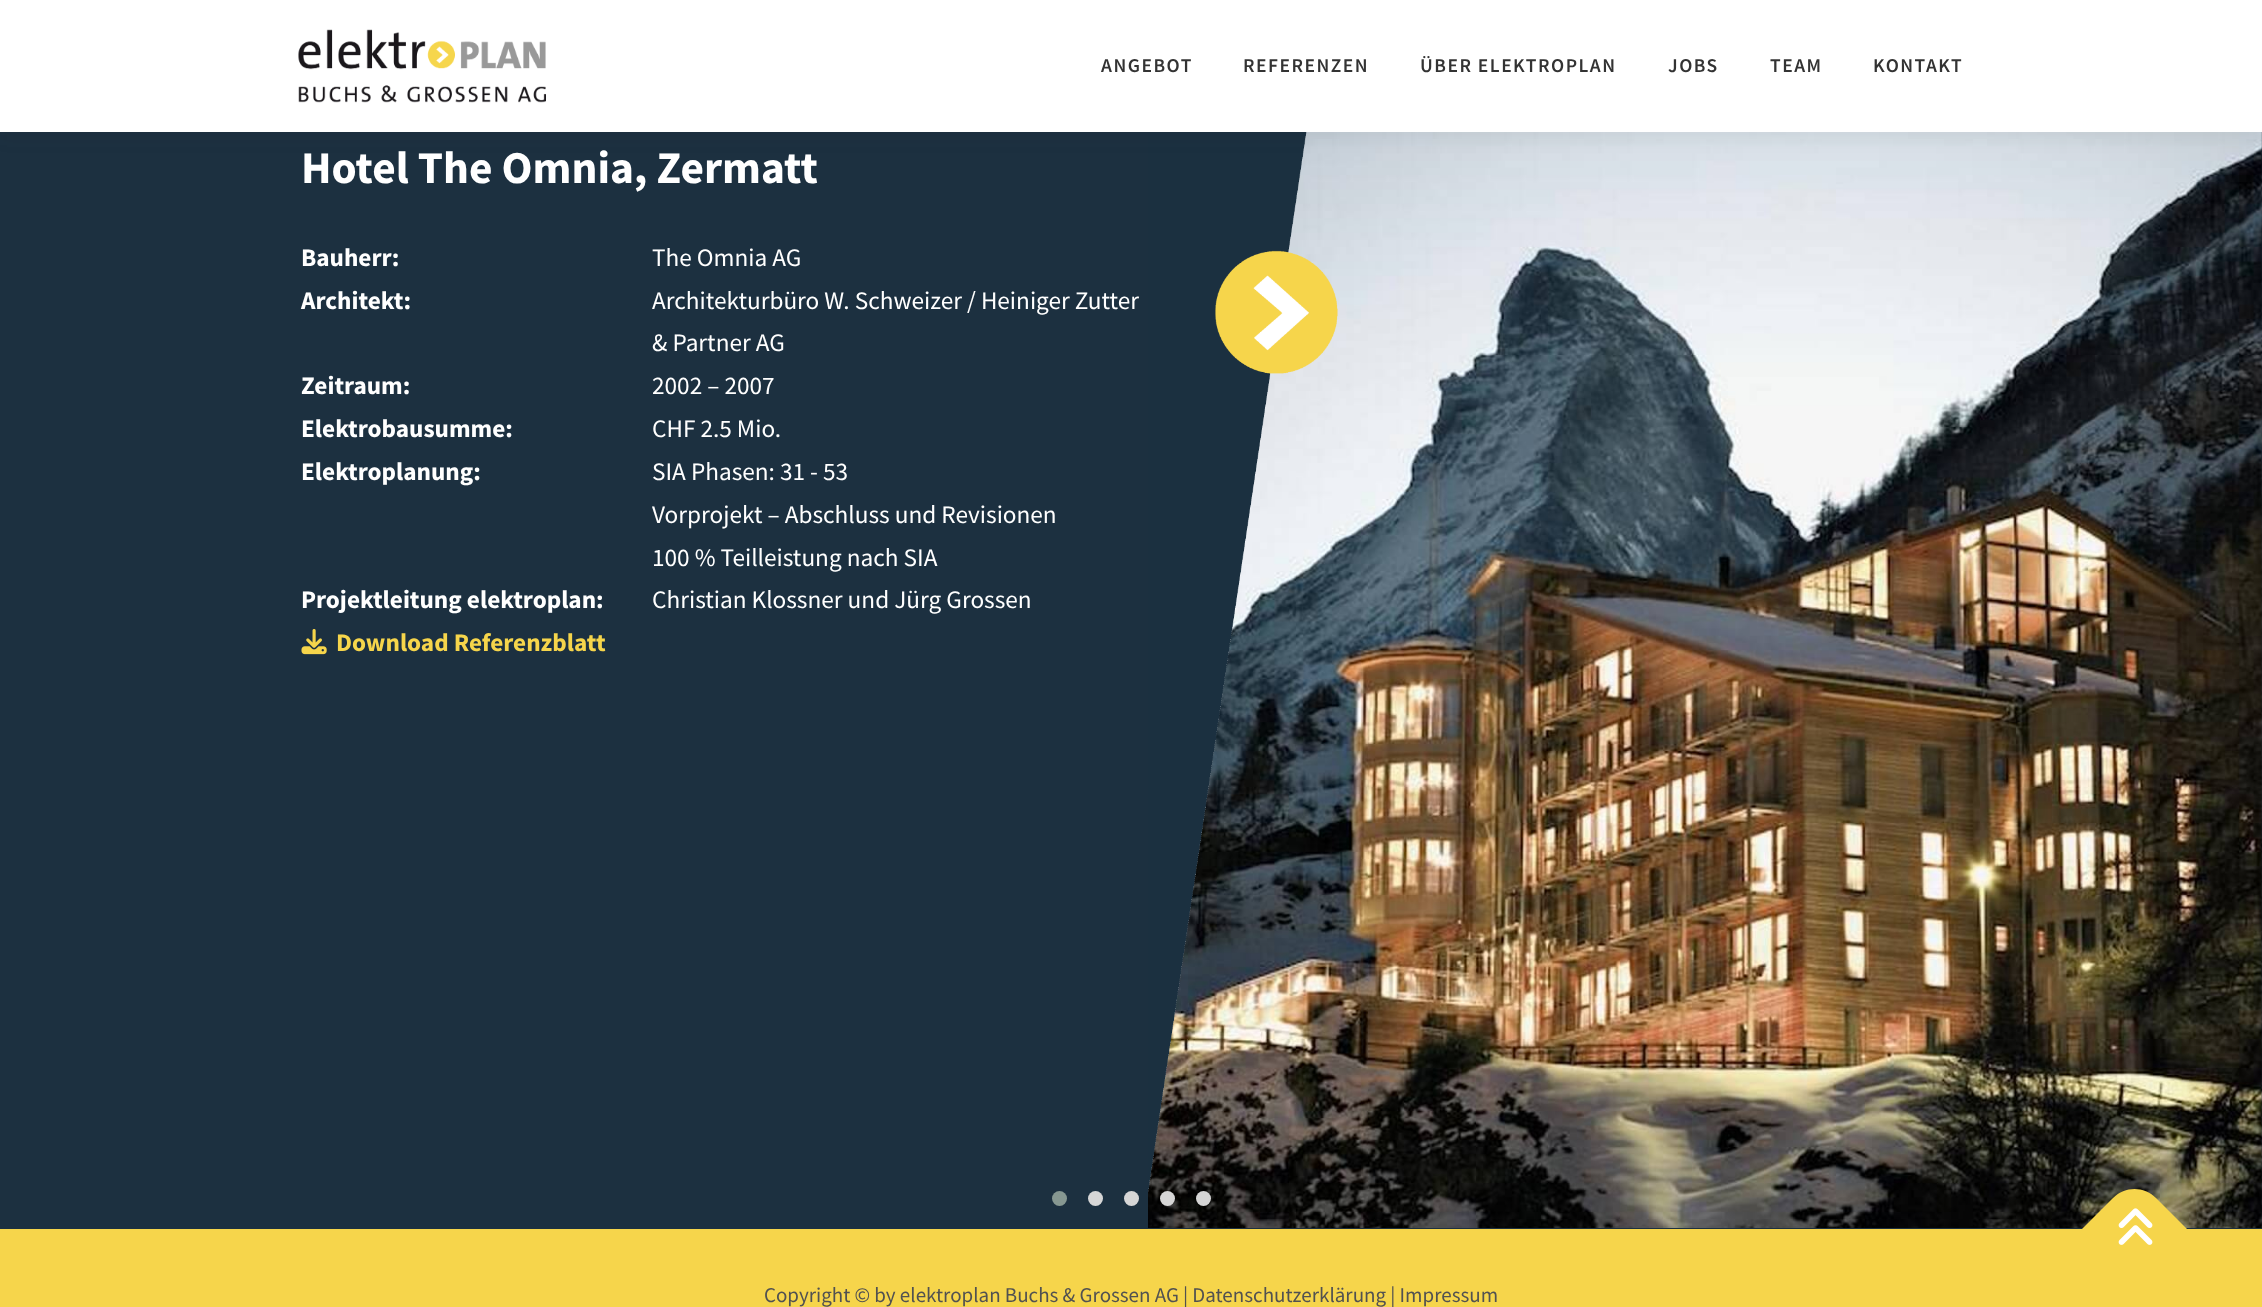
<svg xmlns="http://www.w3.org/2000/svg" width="2262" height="1307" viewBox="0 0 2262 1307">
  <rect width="100%" height="100%" fill="#f6d54b"/>
  <path d="M0 132h2262v1097H0z" fill="#1c3040"/>
  <image x="1148" y="132" width="1114" height="1096" href="img/4.png"/>
  <image x="1148" y="132" width="190" height="1060" href="img/3.png"/>
  <path d="M0 8h2262v132H0z" fill="#3232320f" filter="blur(7.5px)"/>
  <path d="M0 0h2262v132H0z" fill="#fff"/>
  <image x="298" y="29" width="248" height="74" href="img/1.png"/>
  <image x="301" y="629" width="26" height="26" href="img/2.png"/>
  <circle cx="1059.5" cy="1198.5" r="7.5" fill="#869791"/>
  <circle cx="1095.5" cy="1198.5" r="7.5" fill="#d6d6d6"/>
  <circle cx="1131.5" cy="1198.5" r="7.5" fill="#d6d6d6"/>
  <circle cx="1167.5" cy="1198.5" r="7.5" fill="#d6d6d6"/>
  <circle cx="1203.5" cy="1198.5" r="7.5" fill="#d6d6d6"/>
  <path d="M2081 1230L2113 1198C2125 1186 2144 1186 2156 1198L2188 1230L2134 1283Z" fill="#f6d54b"/>
  <image x="2118" y="1208" width="35" height="37" href="img/5.png"/>
  <g font-family="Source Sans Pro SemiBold" font-size="19.5" font-weight="600" letter-spacing="1.5" fill="#333">
    <text x="1101" y="72">ANGEBOT</text>
    <text x="1243" y="72">REFERENZEN</text>
    <text x="1420" y="72">ÜBER ELEKTROPLAN</text>
    <text x="1668" y="72">JOBS</text>
    <text x="1770" y="72">TEAM</text>
    <text x="1873" y="72">KONTAKT</text>
  </g>
  <text x="301" y="183" font-family="Source Sans Pro" font-size="45.4" font-weight="bold" fill="#fff">Hotel The Omnia, Zermatt</text>
  <text x="301" y="266" font-family="Source Sans Pro" font-size="25.25" font-weight="bold" fill="#fff">Bauherr:</text>
  <text x="652" y="266" font-family="Source Sans Pro" font-size="25.25" fill="#fff">The Omnia AG</text>
  <text x="301" y="309" font-family="Source Sans Pro" font-size="25.25" font-weight="bold" fill="#fff">Architekt:</text>
  <g font-family="Source Sans Pro" font-size="25.25" fill="#fff">
    <text x="652" y="309">Architekturbüro W. Schweizer / Heiniger Zutter</text>
    <text x="652" y="351">&amp; Partner AG</text>
  </g>
  <text x="301" y="394" font-family="Source Sans Pro" font-size="25.25" font-weight="bold" fill="#fff">Zeitraum:</text>
  <text x="652" y="394" font-family="Source Sans Pro" font-size="25.25" fill="#fff">2002 – 2007</text>
  <text x="301" y="437" font-family="Source Sans Pro" font-size="25.25" font-weight="bold" fill="#fff">Elektrobausumme:</text>
  <text x="652" y="437" font-family="Source Sans Pro" font-size="25.25" fill="#fff">CHF 2.5 Mio.</text>
  <text x="301" y="480" font-family="Source Sans Pro" font-size="25.25" font-weight="bold" fill="#fff">Elektroplanung:</text>
  <g font-family="Source Sans Pro" font-size="25.25" fill="#fff">
    <text x="652" y="480">SIA Phasen: 31 - 53</text>
    <text x="652" y="523">Vorprojekt – Abschluss und Revisionen</text>
    <text x="652" y="566">100 % Teilleistung nach SIA</text>
  </g>
  <text x="301" y="608" font-family="Source Sans Pro" font-size="25.25" font-weight="bold" fill="#fff">Projektleitung elektroplan:</text>
  <text x="652" y="608" font-family="Source Sans Pro" font-size="25.25" fill="#fff">Christian Klossner und Jürg Grossen</text>
  <text x="336" y="651" font-family="Source Sans Pro" font-size="25.25" font-weight="bold" fill="#f6d54b">Download Referenzblatt</text>
  <text x="764" y="1302" font-family="Source Sans Pro" font-size="21" fill="#515151">Copyright © by elektroplan Buchs &amp; Grossen AG | Datenschutzerklärung | Impressum</text>
</svg>
